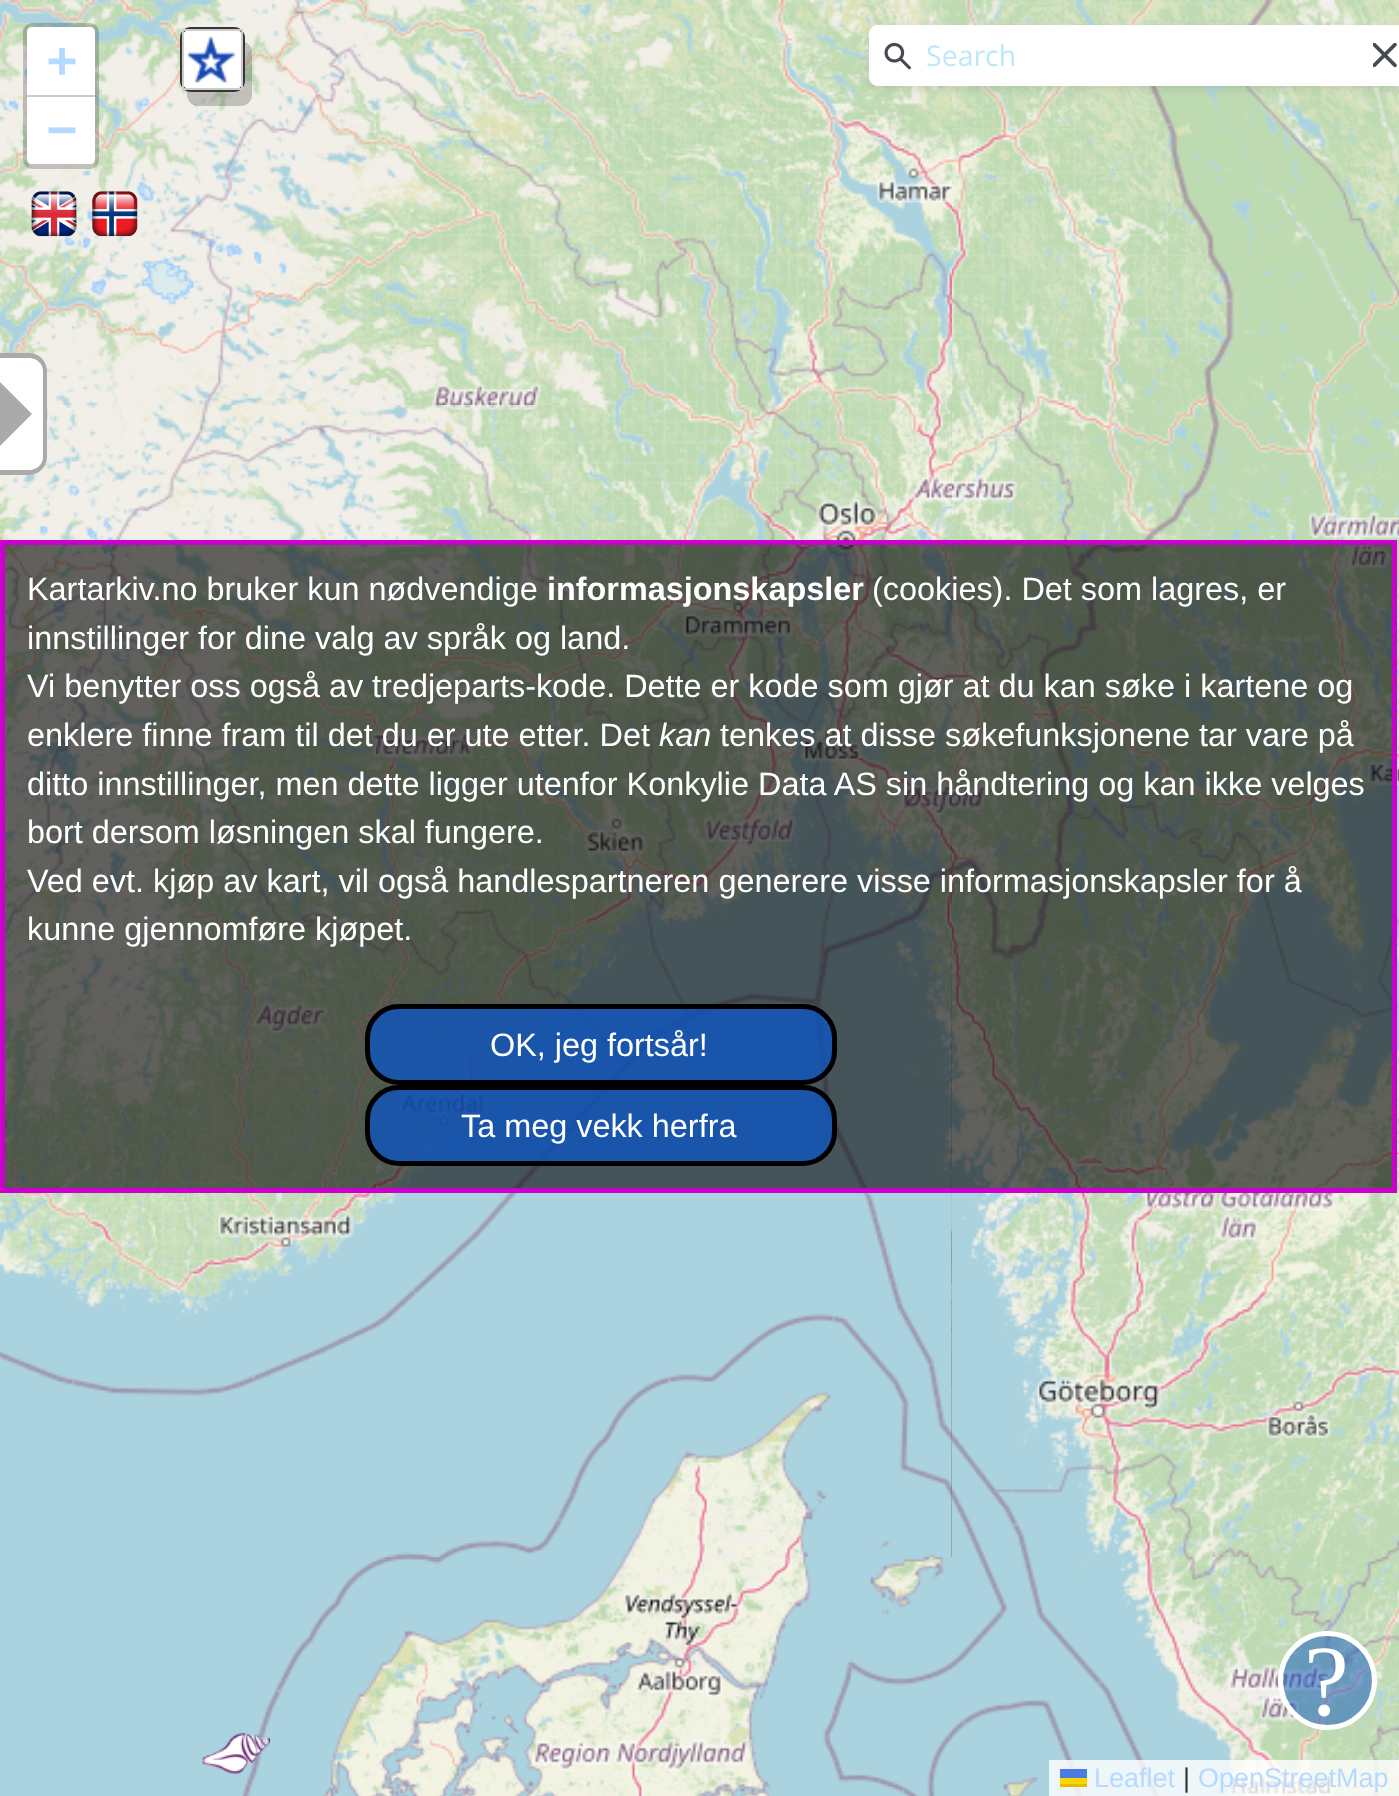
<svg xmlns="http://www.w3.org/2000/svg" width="1399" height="1796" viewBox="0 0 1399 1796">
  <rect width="100%" height="100%" fill="#fff"/>
  <image x="951" y="405" width="1" height="1152" href="img/1.png"/>
  <image x="0" y="0" width="376" height="405" href="img/3.png"/>
  <path d="M187 91V95C187 101 192 106 198 106H241C247 106 252 101 252 95V52C252 47 249 44 245 42V81C245 87 240 92 234 92H191Z" fill="#00000033"/>
  <rect x="181" y="28" width="63" height="63" rx="10" fill="#fff" stroke="#363636" stroke-width="2"/>
  <image x="187" y="36" width="49" height="47" href="img/2.png"/>
  <path d="M183 30h59v59H183z" fill="none" stroke="#ccc" stroke-width="2"/>
  <image x="0" y="405" width="376" height="576" href="img/6.png"/>
  <path d="M-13 353H29C39 353 47 361 47 371V457C47 467 39 475 29 475H-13Z" fill="#fff"/>
  <path d="M-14 353H29C39 353 47 361 47 371V457C47 467 39 475 29 475H-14ZM-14 358H29C37 358 43 364 43 371V457C43 464 37 470 29 470H-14Z" fill="#aaa" fill-rule="evenodd"/>
  <path d="M-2 448V380L32 414Z" fill="#aaa"/>
  <image x="376" y="0" width="576" height="405" href="img/4.png"/>
  <image x="952" y="0" width="447" height="405" href="img/5.png"/>
  <image x="376" y="405" width="576" height="576" href="img/7.png"/>
  <image x="952" y="405" width="447" height="576" href="img/8.png"/>
  <image x="0" y="981" width="376" height="576" href="img/9.png"/>
  <image x="376" y="981" width="576" height="576" href="img/10.png"/>
  <image x="952" y="981" width="447" height="576" href="img/11.png"/>
  <image x="0" y="1557" width="376" height="239" href="img/12.png"/>
  <image x="376" y="1557" width="576" height="239" href="img/13.png"/>
  <image x="952" y="1557" width="447" height="239" href="img/14.png"/>
  <rect x="25.5" y="25.5" width="71" height="141" rx="6.5" fill="none" stroke="#00000033" stroke-width="5"/>
  <path d="M32 27H90C93 27 95 29 95 32V97H27V32C27 29 29 27 32 27Z" fill="#fff"/>
  <path d="M27 95h68v2H27z" fill="#ccc"/>
  <path d="M27 97H95V159C95 162 93 164 90 164H32C29 164 27 162 27 159Z" fill="#fff"/>
  <rect x="869" y="29" width="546" height="59" rx="9" fill="#33335926" filter="blur(5px)"/>
  <path d="M878 25H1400V86H878C873 86 869 82 869 77V34C869 29 873 25 878 25Z" fill="#fff"/>
  <image x="884" y="42" width="27" height="28" href="img/15.png"/>
  <image x="1373" y="43" width="24" height="25" href="img/16.png"/>
  <path d="M1049 1760h350v36H1049z" fill="#ffffffcc"/>
  <path d="M1060 1769h27v9H1060z" fill="#4c7be1"/>
  <path d="M1060 1778h27v6H1060z" fill="#ffd500"/>
  <path d="M1060 1784h27v3H1060z" fill="#e0bc00"/>
  <image x="31" y="191" width="46" height="46" href="img/17.png"/>
  <image x="92" y="191" width="46" height="46" href="img/18.png"/>
  <path d="M2.5 542.5h1392v648H2.5z" fill="#00000099" stroke="#c0c" stroke-width="5"/>
  <rect x="367.5" y="1006.5" width="467" height="76" rx="31.5" fill="#0e55bfcc" stroke="#000" stroke-width="5"/>
  <rect x="367.5" y="1087.5" width="467" height="76" rx="31.5" fill="#0e55bfcc" stroke="#000" stroke-width="5"/>
  <circle cx="1327.5" cy="1680.5" r="47" fill="#0e55bf80" stroke="#fff" stroke-width="5"/>
  <image x="202" y="1732" width="68" height="43" href="img/19.png"/>
  <g font-family="DejaVu Sans Mono" font-size="50" font-weight="bold" fill="#b6daff">
    <text x="47" y="77">+</text>
    <text x="47" y="146">−</text>
  </g>
  <text x="926" y="66" font-family="Open Sans" font-size="28.5" fill="#bce8f7">Search</text>
  <text x="1094" y="1787" font-family="Liberation Sans" font-size="27" fill="#b6daff">Leaflet</text>
  <text x="1183" y="1787" font-family="Liberation Sans" font-size="27" fill="#333">|</text>
  <text x="1198" y="1787" font-family="Liberation Sans" font-size="27" fill="#b6daff">OpenStreetMap</text>
  <text x="27" y="600" font-family="Liberation Sans" font-size="32.4" fill="#fff">Kartarkiv.no bruker kun nødvendige</text>
  <text x="547" y="600" font-family="Liberation Sans" font-size="32.4" font-weight="bold" fill="#fff">informasjonskapsler</text>
  <g font-family="Liberation Sans" font-size="32.4" fill="#fff">
    <text x="872" y="600">(cookies). Det som lagres, er</text>
    <text x="27" y="649">innstillinger for dine valg av språk og land.</text>
    <text x="27" y="697">Vi benytter oss også av tredjeparts-kode. Dette er kode som gjør at du kan søke i kartene og</text>
    <text x="27" y="746">enklere finne fram til det du er ute etter. Det</text>
  </g>
  <text x="659" y="746" font-family="Liberation Sans" font-size="32.4" font-style="italic" fill="#fff">kan</text>
  <g font-family="Liberation Sans" font-size="32.4" fill="#fff">
    <text x="720" y="746">tenkes at disse søkefunksjonene tar vare på</text>
    <text x="27" y="795">ditto innstillinger, men dette ligger utenfor Konkylie Data AS sin håndtering og kan ikke velges</text>
    <text x="27" y="843">bort dersom løsningen skal fungere.</text>
    <text x="27" y="892">Ved evt. kjøp av kart, vil også handlespartneren generere visse informasjonskapsler for å</text>
    <text x="27" y="940">kunne gjennomføre kjøpet.</text>
    <text x="490" y="1056">OK, jeg fortsår!</text>
    <text x="461" y="1137">Ta meg vekk herfra</text>
  </g>
  <text x="1304" y="1715" font-family="Liberation Serif" font-size="101" fill="#fff">?</text>
</svg>
